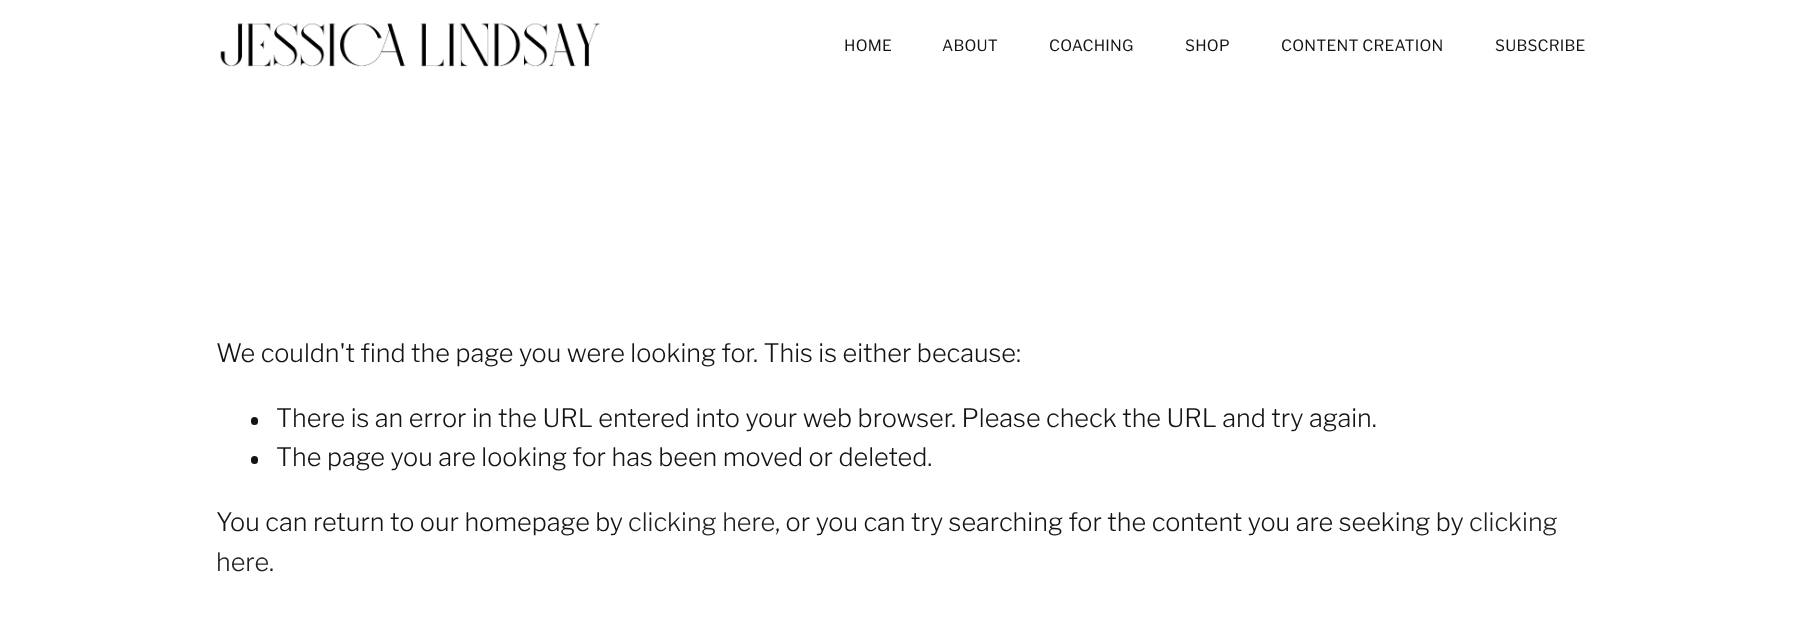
<svg xmlns="http://www.w3.org/2000/svg" width="1803" height="631" viewBox="0 0 1803 631">
  <rect width="100%" height="100%" fill="#fff"/>
  <image x="220" y="23" width="380" height="44" href="img/1.png"/>
  <rect x="251" y="417" width="7" height="8" rx="3.5" fill="#141415"/>
  <rect x="251" y="456" width="7" height="8" rx="3.5" fill="#141415"/>
  <g font-family="Libre Franklin" font-size="15.5" letter-spacing="0.25" fill="#141415">
    <text x="844" y="51">HOME</text>
    <text x="942" y="51">ABOUT</text>
    <text x="1049" y="51">COACHING</text>
    <text x="1185" y="51">SHOP</text>
    <text x="1281" y="51">CONTENT CREATION</text>
    <text x="1495" y="51">SUBSCRIBE</text>
  </g>
  <g font-family="Libre Franklin" font-size="25.3" font-weight="300" fill="#141415">
    <text x="216" y="362">We couldn't find the page you were looking for. This is either because:</text>
    <text x="276" y="427">There is an error in the URL entered into your web browser. Please check the URL and try again.</text>
    <text x="276" y="466">The page you are looking for has been moved or deleted.</text>
    <text x="216" y="531">You can return to our homepage by</text>
  </g>
  <text x="628" y="531" font-family="Libre Franklin" font-size="25.3" font-weight="300" fill="#1f1f1f">clicking here</text>
  <text x="775" y="531" font-family="Libre Franklin" font-size="25.3" font-weight="300" fill="#141415">, or you can try searching for the content you are seeking by</text>
  <g font-family="Libre Franklin" font-size="25.3" font-weight="300" fill="#1f1f1f">
    <text x="1469" y="531">clicking</text>
    <text x="216" y="571">here</text>
  </g>
  <text x="269" y="571" font-family="Libre Franklin" font-size="25.3" font-weight="300" fill="#141415">.</text>
</svg>
